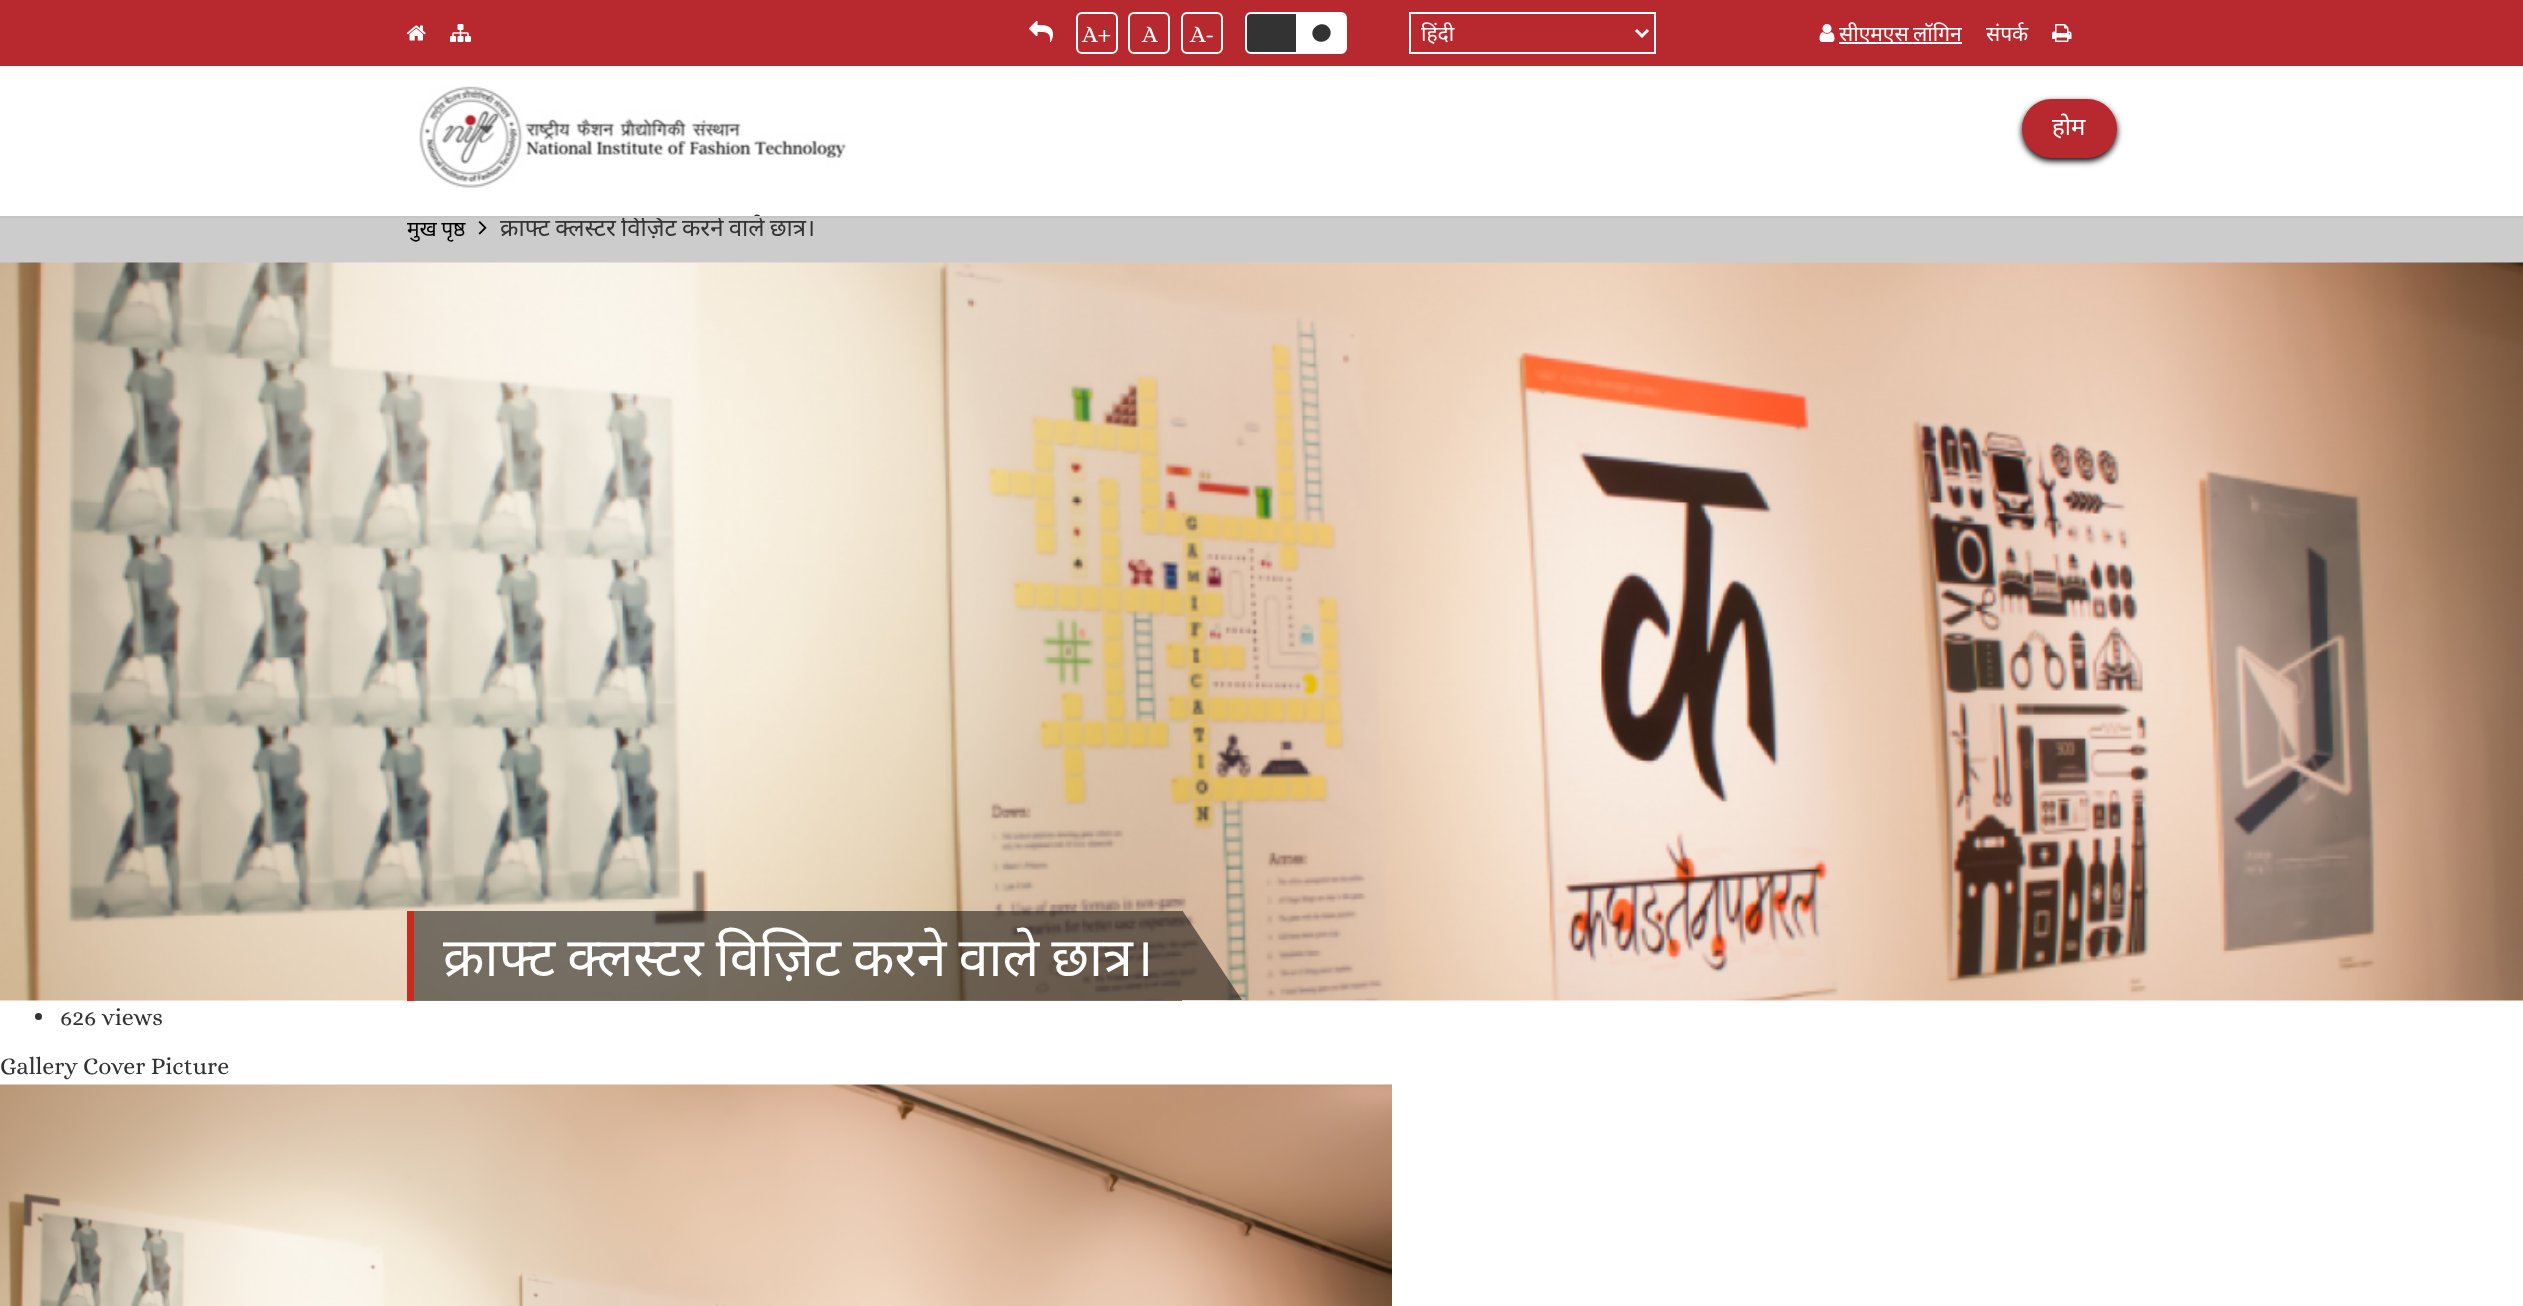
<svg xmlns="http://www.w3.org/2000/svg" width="2523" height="1306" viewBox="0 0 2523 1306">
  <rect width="100%" height="100%" fill="#fff"/>
  <path d="M0 0h2523v66H0z" fill="#b8292f"/>
  <image x="406" y="25" width="20" height="16" href="img/1.png"/>
  <image x="450" y="24" width="21" height="18" href="img/2.png"/>
  <image x="1029" y="20" width="24" height="23" href="img/3.png"/>
  <rect x="1077" y="13" width="40" height="40" rx="5" fill="none" stroke="#fff" stroke-width="2"/>
  <rect x="1129" y="13" width="40" height="40" rx="5" fill="none" stroke="#fff" stroke-width="2"/>
  <rect x="1182" y="13" width="40" height="40" rx="5" fill="none" stroke="#fff" stroke-width="2"/>
  <rect x="1246" y="13" width="100" height="40" rx="5" fill="#333" stroke="#fff" stroke-width="2"/>
  <path d="M1296 14H1341C1344 14 1346 16 1346 19V48C1346 51 1344 53 1341 53H1296Z" fill="#fff"/>
  <path d="M1329.5 28.5C1335 38.5 1319.5 47.5 1313.5 37.5C1308 27.5 1323.5 18.5 1329.5 28.5Z" fill="#333"/>
  <path d="M1410 13h245v40H1410z" fill="none" stroke="#fff" stroke-width="2"/>
  <path d="M1636 30L1642 36L1648 30" fill="none" stroke="#fff" stroke-width="3"/>
  <image x="1819" y="24" width="16" height="18" href="img/4.png"/>
  <path d="M1839 42h123v2H1839z" fill="#fff"/>
  <image x="2052" y="24" width="20" height="18" href="img/5.png"/>
  <image x="419" y="86" width="428" height="102" href="img/6.png"/>
  <rect x="2022" y="102" width="95" height="59" rx="29.5" fill="#000" filter="blur(3px)"/>
  <rect x="2022" y="99" width="95" height="59" rx="29.5" fill="#b8292f"/>
  <path d="M0 218h2523v45H0z" fill="#ccc"/>
  <image x="478" y="221" width="9" height="14" href="img/7.png"/>
  <image x="0" y="262" width="2523" height="739" href="img/8.png"/>
  <path d="M414 911h768v90H414z" fill="#00000080"/>
  <path d="M407 911h7v90H407z" fill="#ca2b1f"/>
  <path d="M1242 1000H1182V910Z" fill="#00000080"/>
  <circle cx="38.5" cy="1016.5" r="3.5" fill="#333"/>
  <image x="0" y="1084" width="1392" height="222" href="img/9.png"/>
  <g font-family="Alice" font-size="24" fill="#fff">
    <text x="1082" y="42">A+</text>
    <text x="1142" y="42">A</text>
    <text x="1190" y="42">A-</text>
  </g>
  <g font-family="Noto Sans" font-size="21" fill="#fff">
    <text x="1421" y="41">हिंदी</text>
    <text x="1839" y="41" word-spacing="-1">सीएमएस लॉगिन</text>
    <text x="1986" y="41">संपर्क</text>
  </g>
  <text x="2052" y="135" font-family="Noto Sans" font-size="24" fill="#fff">होम</text>
  <text x="407" y="236" word-spacing="-1" font-family="Noto Sans" font-size="21" fill="#000">मुख पृष्ठ</text>
  <text x="500" y="236" word-spacing="-1" font-family="Noto Sans" font-size="24" fill="#333">क्राफ्ट क्लस्टर विज़िट करने वाले छात्र।</text>
  <path d="M0 216h2523v2H0z" fill="#c9c4c4"/>
  <path d="M623 214h121v2H623z" fill="#fff"/>
  <text x="443" y="976" word-spacing="-2" font-family="Noto Sans" font-size="54" fill="#fff">क्राफ्ट क्लस्टर विज़िट करने वाले छात्र।</text>
  <g font-family="Alice" font-size="24" fill="#333">
    <text x="60" y="1025">626 views</text>
    <text x="0" y="1074">Gallery Cover Picture</text>
  </g>
</svg>
